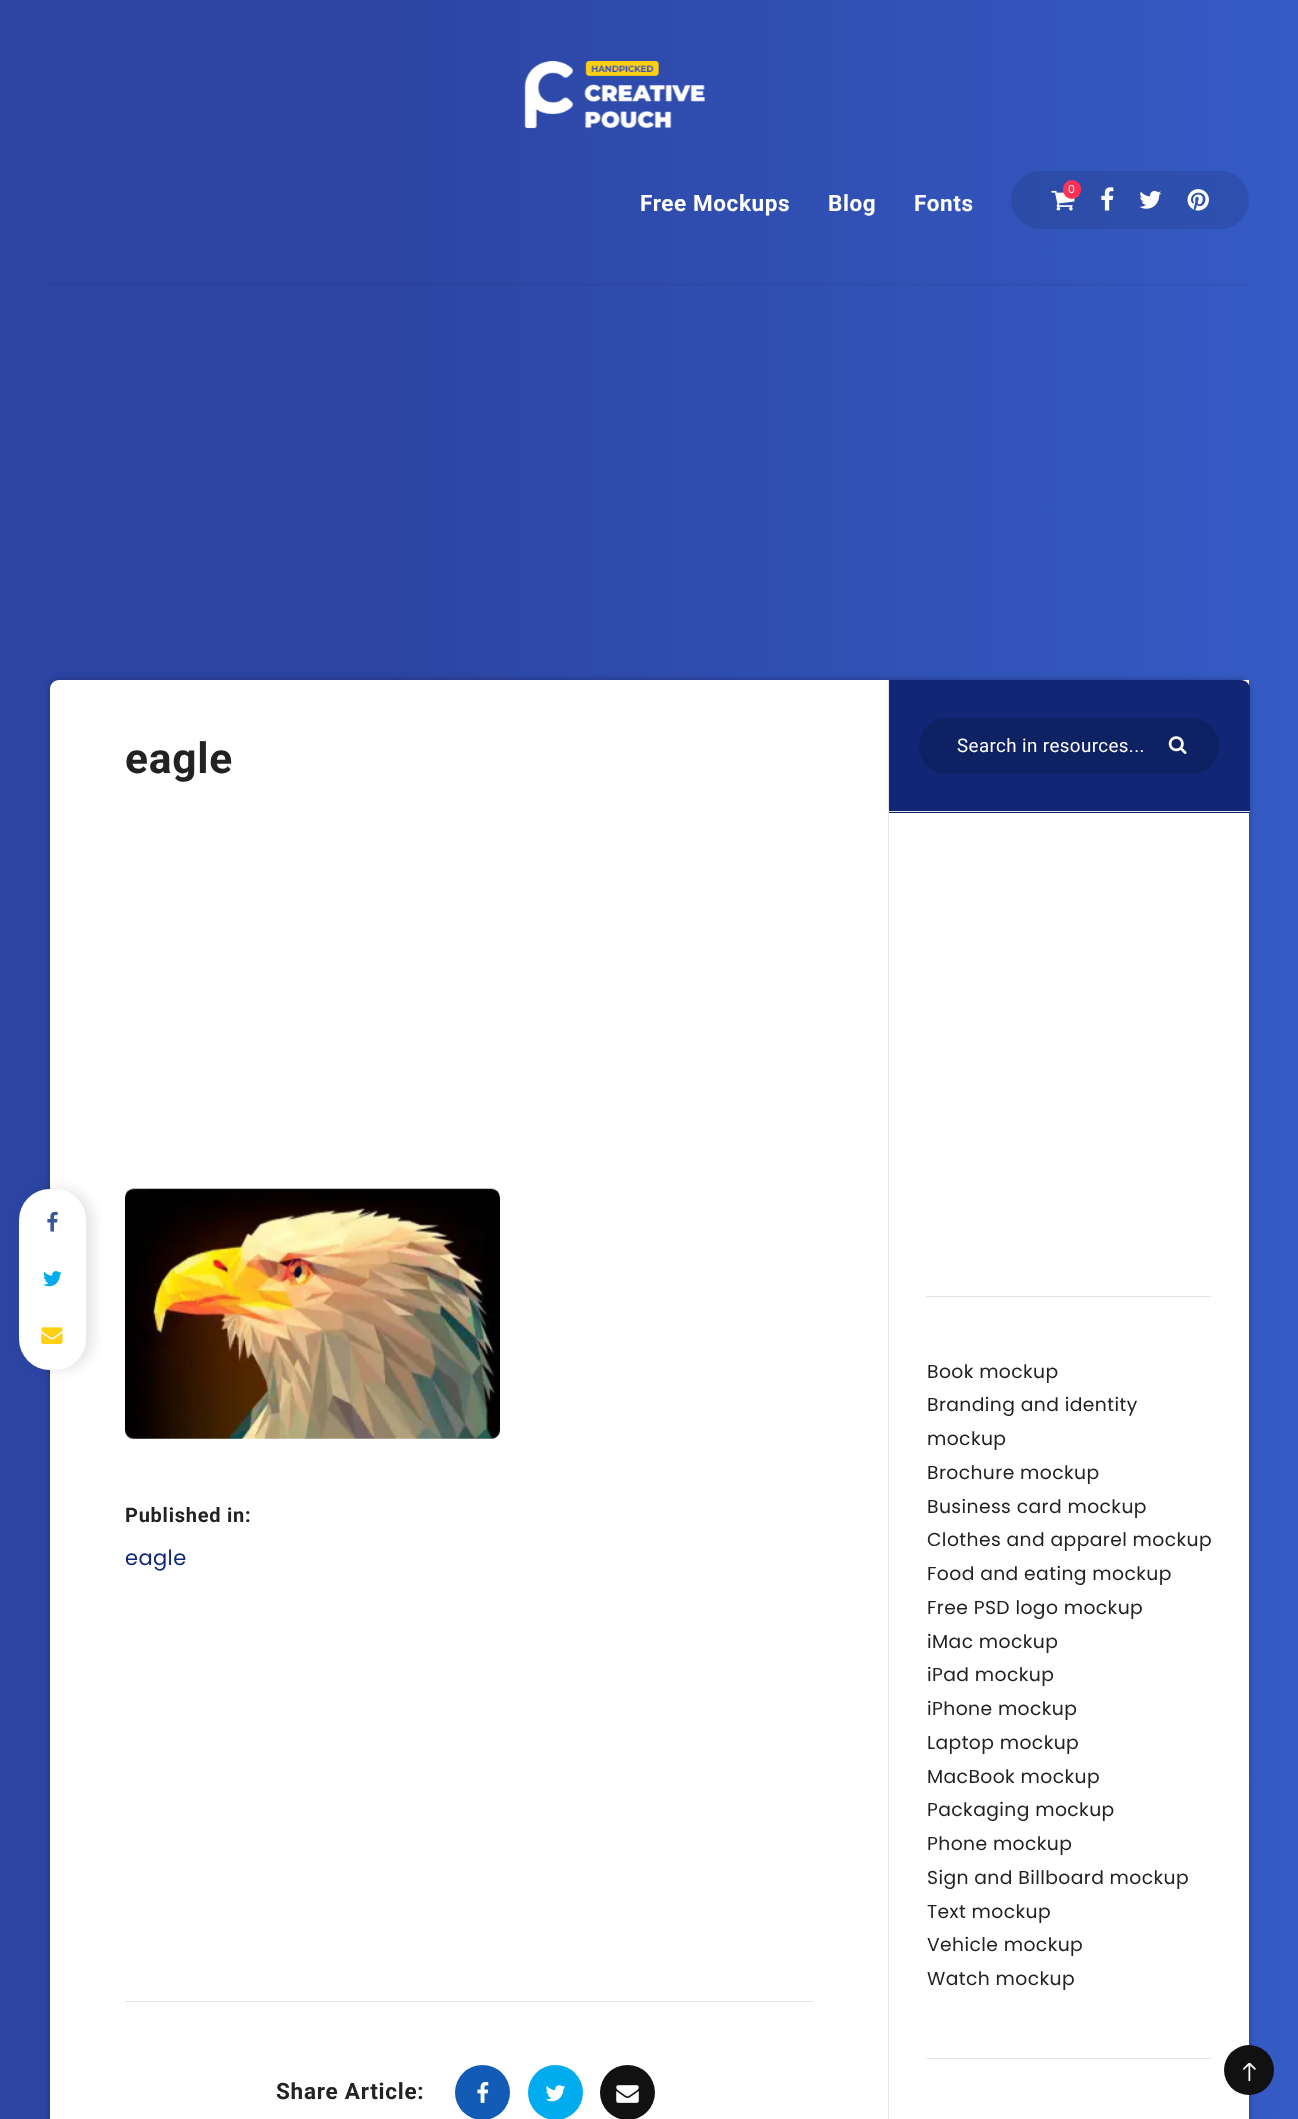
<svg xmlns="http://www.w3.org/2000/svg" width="1298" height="2119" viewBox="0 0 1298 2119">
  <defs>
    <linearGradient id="g1" gradientUnits="userSpaceOnUse" x1="0" y1="1060" x2="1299" y2="1060"><stop offset="0.3" stop-color="#2c45a3"/><stop offset="1" stop-color="#355bc5"/></linearGradient>
    <linearGradient id="g2" gradientUnits="userSpaceOnUse" x1="0" y1="1060" x2="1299" y2="1060"><stop offset="0.3" stop-color="#2a429b"/><stop offset="1" stop-color="#3256bb"/></linearGradient>
  </defs>
  <rect width="100%" height="100%" fill="#fff"/>
  <path d="M0 0h1298v2119H0z" fill="url(#g1)"/>
  <path d="M50 283h1199v3H50z" fill="url(#g2)"/>
  <image x="524" y="61" width="181" height="68" href="img/1.png"/>
  <rect x="1011" y="171" width="238" height="58" rx="29" fill="#0000001a"/>
  <image x="1051" y="190" width="24" height="21" href="img/2.png"/>
  <rect x="1063" y="180" width="18" height="19" rx="9" fill="#ff3152"/>
  <image x="1101" y="187" width="13" height="24" href="img/3.png"/>
  <image x="1139" y="190" width="23" height="19" href="img/4.png"/>
  <image x="1187" y="189" width="22" height="22" href="img/5.png"/>
  <rect x="50" y="680" width="1199" height="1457" rx="9" fill="#0000004d" filter="blur(3px)"/>
  <path d="M59 680H1240C1245 680 1249 684 1249 689V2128H50V689C50 684 54 680 59 680Z" fill="#fff"/>
  <rect x="25" y="1189" width="68" height="181" rx="31" fill="#0000001a" filter="blur(6px)"/>
  <rect x="19" y="1189" width="67" height="181" rx="31" fill="#fff"/>
  <image x="47" y="1211" width="11" height="21" href="img/6.png"/>
  <image x="43" y="1271" width="19" height="16" href="img/7.png"/>
  <image x="41" y="1327" width="22" height="17" href="img/8.png"/>
  <image x="125" y="1188" width="375" height="251" href="img/9.png"/>
  <path d="M125 2001h688v1H125z" fill="#e5e5e5"/>
  <circle cx="482.5" cy="2092.5" r="27.5" fill="#135cb6"/>
  <image x="477" y="2082" width="12" height="21" href="img/10.png"/>
  <circle cx="555.5" cy="2092.5" r="27.5" fill="#00aced"/>
  <image x="545" y="2085" width="21" height="17" href="img/11.png"/>
  <circle cx="627.5" cy="2092.5" r="27.5" fill="#111"/>
  <image x="616" y="2085" width="23" height="18" href="img/12.png"/>
  <path d="M1240 680h9v9H1240z" fill="#fff"/>
  <path d="M888 680H1241C1246 680 1250 684 1250 689V813H888Z" fill="#112775"/>
  <path d="M888 811h362v1H888z" fill="#e5e5e5"/>
  <path d="M888 680h1v1439H888z" fill="#e5e5e5"/>
  <rect x="919" y="718" width="300" height="56" rx="28" fill="#0e2163"/>
  <image x="1168" y="736" width="19" height="18" href="img/13.png"/>
  <path d="M926 1296h285v1H926z" fill="#e5e5e5"/>
  <path d="M926 2058h285v1H926z" fill="#e5e5e5"/>
  <circle cx="1249" cy="2070" r="25" fill="#111"/>
  <image x="1243" y="2063" width="13" height="18" href="img/14.png"/>
  <text x="1068" y="193" font-family="Poppins" font-size="11" letter-spacing="0.4" fill="#fff">0</text>
  <g font-family="Roboto" font-size="22.5" font-weight="bold" letter-spacing="0.6" fill="#fff">
    <text x="640" y="211">Free Mockups</text>
    <text x="828" y="211">Blog</text>
    <text x="914" y="211">Fonts</text>
  </g>
  <text x="125" y="773" font-family="Roboto" font-size="42.5" font-weight="bold" letter-spacing="0.75" fill="#222">eagle</text>
  <text x="125" y="1522" font-family="Roboto" font-size="20" font-weight="bold" letter-spacing="0.75" fill="#222">Published in:</text>
  <text x="125" y="1565" font-family="Poppins" font-size="21" letter-spacing="0.4" fill="#112775">eagle</text>
  <text x="276" y="2099" font-family="Roboto" font-size="22.5" font-weight="bold" letter-spacing="0.75" fill="#222">Share Article:</text>
  <text x="957" y="752" font-family="Roboto" font-size="18.75" letter-spacing="0.4" fill="#fff">Search in resources...</text>
  <g font-family="Poppins" font-size="18.75" letter-spacing="0.4" fill="#222">
    <text x="927" y="1378">Book mockup</text>
    <text x="927" y="1411">Branding and identity</text>
    <text x="927" y="1445">mockup</text>
    <text x="927" y="1479">Brochure mockup</text>
    <text x="927" y="1513">Business card mockup</text>
    <text x="927" y="1546">Clothes and apparel mockup</text>
    <text x="927" y="1580">Food and eating mockup</text>
    <text x="927" y="1614">Free PSD logo mockup</text>
    <text x="927" y="1648">iMac mockup</text>
    <text x="927" y="1681">iPad mockup</text>
    <text x="927" y="1715">iPhone mockup</text>
    <text x="927" y="1749">Laptop mockup</text>
    <text x="927" y="1783">MacBook mockup</text>
    <text x="927" y="1816">Packaging mockup</text>
    <text x="927" y="1850">Phone mockup</text>
    <text x="927" y="1884">Sign and Billboard mockup</text>
    <text x="927" y="1918">Text mockup</text>
    <text x="927" y="1951">Vehicle mockup</text>
    <text x="927" y="1985">Watch mockup</text>
  </g>
</svg>
